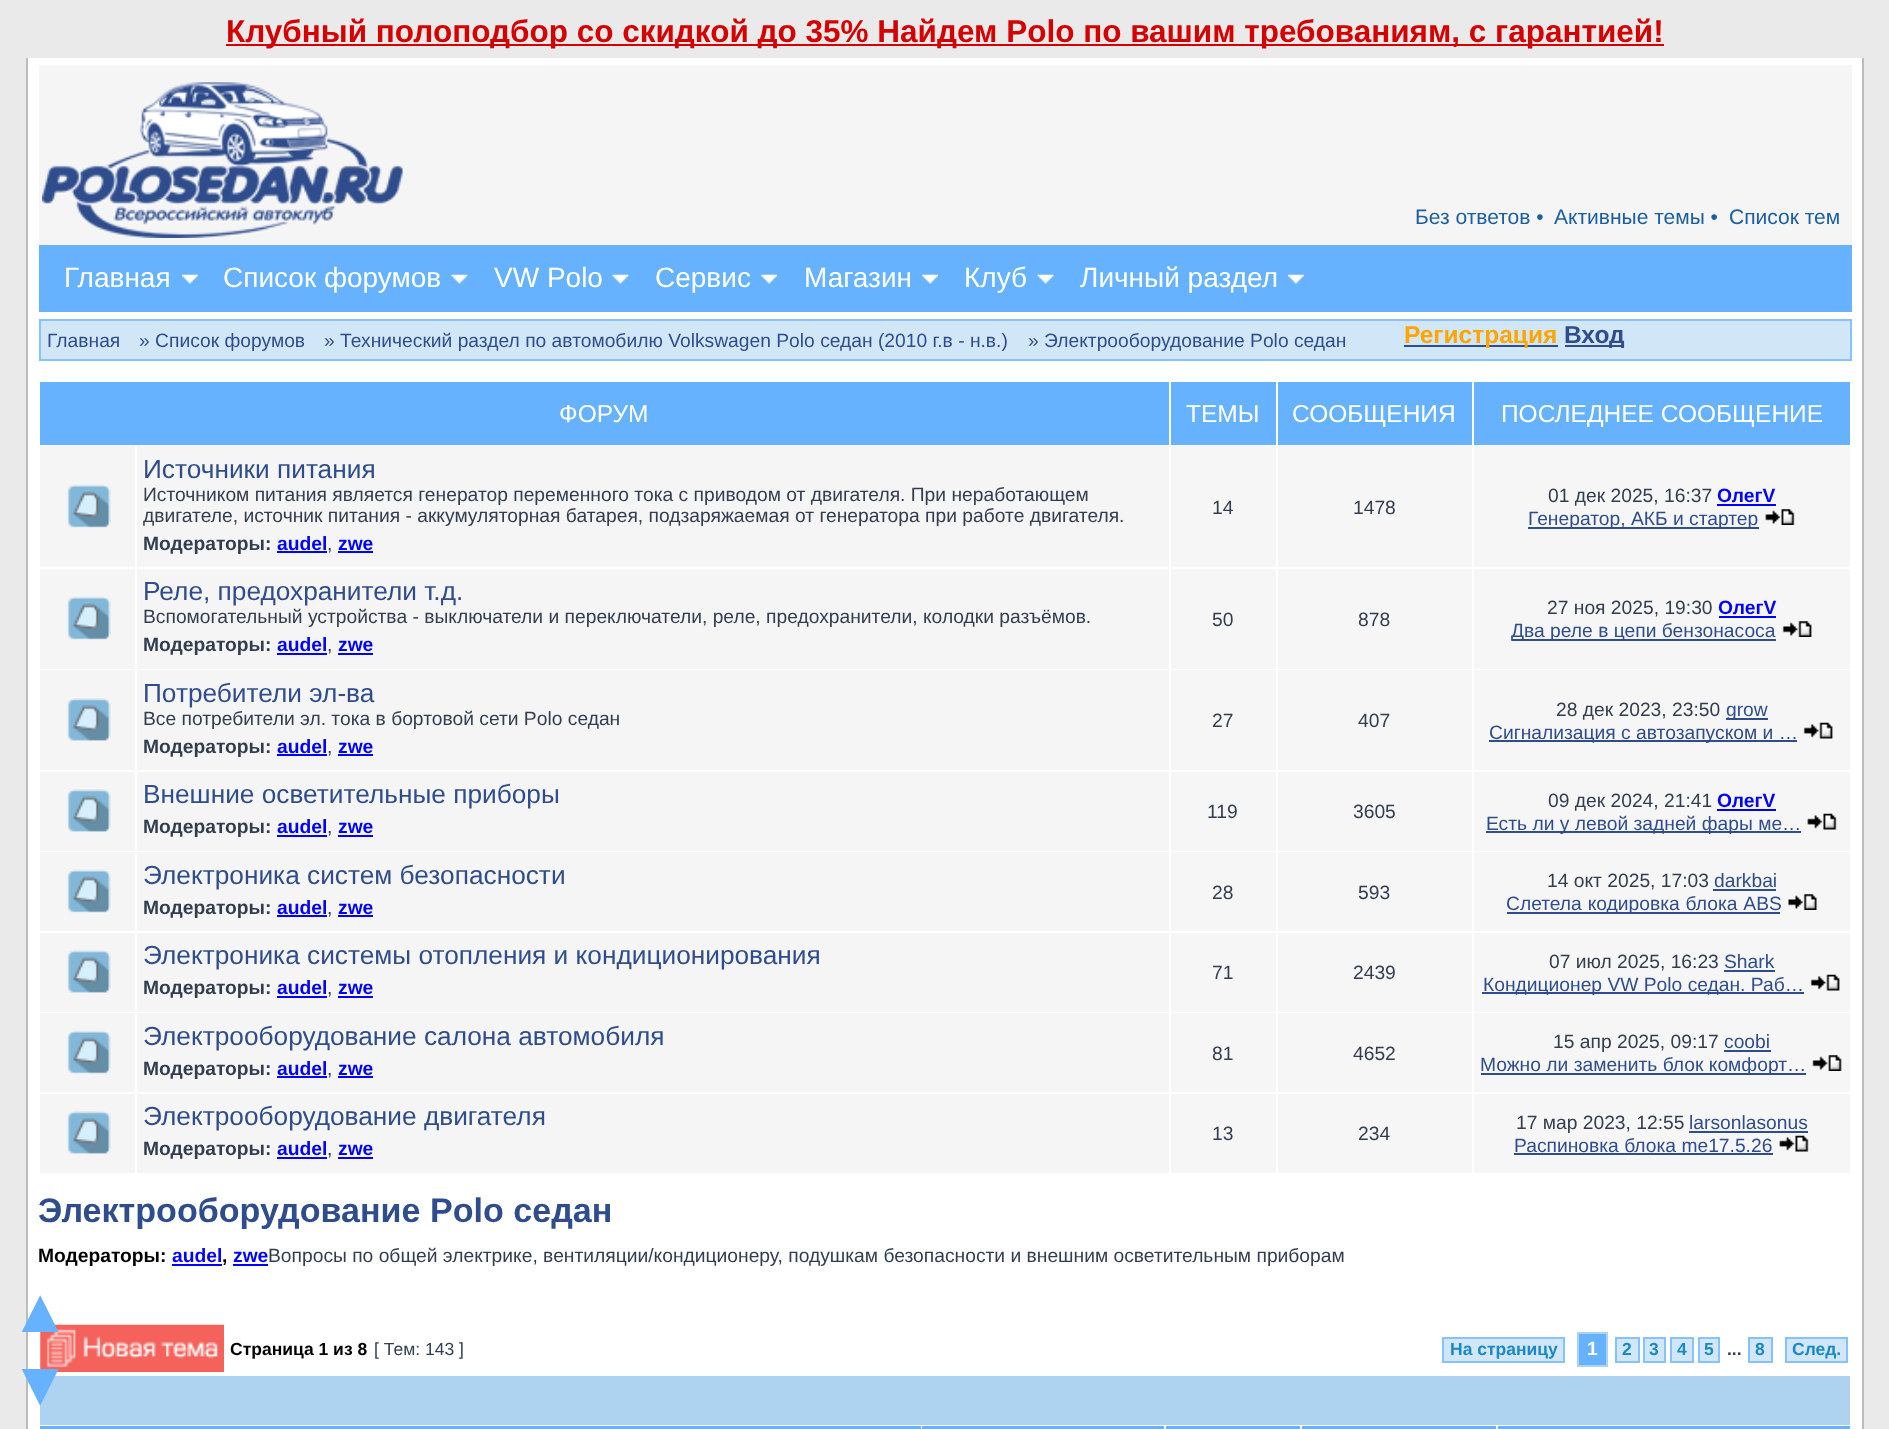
<svg xmlns="http://www.w3.org/2000/svg" width="1889" height="1429" viewBox="0 0 1889 1429">
  <rect width="100%" height="100%" fill="#eaeaea"/>
  <path d="M226 44h1438v2H226z" fill="#d50000"/>
  <path d="M28 58h1834v1371H28z" fill="#fff"/>
  <path d="M1862 58h2v1371H1862z" fill="#bcbcbc"/>
  <path d="M26 58h2v1371H26z" fill="#bcbcbc"/>
  <path d="M39 65h1813v180H39z" fill="#f5f5f5"/>
  <image x="42" y="82" width="361" height="156" href="img/1.png"/>
  <path d="M39 245h1813v67H39z" fill="#66b2ff"/>
  <image x="182" y="274" width="16" height="10" href="img/2.png"/>
  <image x="451" y="274" width="17" height="10" href="img/3.png"/>
  <image x="612" y="274" width="17" height="10" href="img/4.png"/>
  <image x="761" y="274" width="16" height="10" href="img/5.png"/>
  <image x="922" y="274" width="16" height="10" href="img/5.png"/>
  <image x="1037" y="274" width="17" height="10" href="img/6.png"/>
  <image x="1288" y="274" width="16" height="10" href="img/7.png"/>
  <path d="M40 320h1811v40H40z" fill="#d1e7f7" stroke="#86c2ff" stroke-width="2"/>
  <path d="M1404 345h154v2H1404z" fill="#2f4d8d"/>
  <path d="M1565 345h59v2H1565z" fill="#2f4d8d"/>
  <path d="M40 382h1129v63H40z" fill="#66b2ff"/>
  <path d="M1171 382h105v63H1171z" fill="#66b2ff"/>
  <path d="M1278 382h194v63H1278z" fill="#66b2ff"/>
  <path d="M1474 382h376v63H1474z" fill="#66b2ff"/>
  <path d="M40 446h95v121H40z" fill="#f5f5f5"/>
  <image x="67" y="484" width="44" height="44" href="img/8.png"/>
  <path d="M137 446h1032v121H137z" fill="#f5f5f5"/>
  <path d="M277 551h50v2H277z" fill="#00f"/>
  <path d="M338 551h35v2H338z" fill="#00f"/>
  <path d="M1171 446h105v121H1171z" fill="#f6f6f6"/>
  <path d="M1278 446h194v121H1278z" fill="#f6f6f6"/>
  <path d="M1474 446h376v121H1474z" fill="#f6f6f6"/>
  <path d="M1717 504h59v2H1717z" fill="#00f"/>
  <path d="M1528 527h231v2H1528z" fill="#2f4d8d"/>
  <image x="1765" y="509" width="30" height="16" href="img/9.png"/>
  <path d="M40 569h95v100H40z" fill="#f5f5f5"/>
  <image x="67" y="596" width="44" height="44" href="img/8.png"/>
  <path d="M137 569h1032v100H137z" fill="#f5f5f5"/>
  <path d="M277 653h50v2H277z" fill="#00f"/>
  <path d="M338 653h35v2H338z" fill="#00f"/>
  <path d="M1171 569h105v100H1171z" fill="#f6f6f6"/>
  <path d="M1278 569h194v100H1278z" fill="#f6f6f6"/>
  <path d="M1474 569h376v100H1474z" fill="#f6f6f6"/>
  <path d="M1719 616h57v2H1719z" fill="#00f"/>
  <path d="M1512 639h264v2H1512z" fill="#2f4d8d"/>
  <image x="1782" y="621" width="30" height="16" href="img/10.png"/>
  <path d="M40 670h95v100H40z" fill="#f5f5f5"/>
  <image x="67" y="698" width="44" height="43" href="img/11.png"/>
  <path d="M137 670h1032v100H137z" fill="#f5f5f5"/>
  <path d="M277 754h50v2H277z" fill="#00f"/>
  <path d="M338 754h35v2H338z" fill="#00f"/>
  <path d="M1171 670h105v100H1171z" fill="#f6f6f6"/>
  <path d="M1278 670h194v100H1278z" fill="#f6f6f6"/>
  <path d="M1474 670h376v100H1474z" fill="#f6f6f6"/>
  <path d="M1726 718h42v2H1726z" fill="#2f4d8d"/>
  <path d="M1489 740h308v2H1489z" fill="#2f4d8d"/>
  <image x="1803" y="722" width="30" height="17" href="img/12.png"/>
  <path d="M40 772h95v79H40z" fill="#f5f5f5"/>
  <image x="67" y="789" width="44" height="43" href="img/11.png"/>
  <path d="M137 772h1032v79H137z" fill="#f5f5f5"/>
  <path d="M277 835h50v2H277z" fill="#00f"/>
  <path d="M338 835h35v2H338z" fill="#00f"/>
  <path d="M1171 772h105v79H1171z" fill="#f6f6f6"/>
  <path d="M1278 772h194v79H1278z" fill="#f6f6f6"/>
  <path d="M1474 772h376v79H1474z" fill="#f6f6f6"/>
  <path d="M1717 809h59v2H1717z" fill="#00f"/>
  <path d="M1486 831h315v2H1486z" fill="#2f4d8d"/>
  <image x="1807" y="813" width="30" height="17" href="img/13.png"/>
  <path d="M40 852h95v79H40z" fill="#f5f5f5"/>
  <image x="67" y="869" width="44" height="44" href="img/8.png"/>
  <path d="M137 852h1032v79H137z" fill="#f5f5f5"/>
  <path d="M277 915h50v2H277z" fill="#00f"/>
  <path d="M338 915h35v2H338z" fill="#00f"/>
  <path d="M1171 852h105v79H1171z" fill="#f6f6f6"/>
  <path d="M1278 852h194v79H1278z" fill="#f6f6f6"/>
  <path d="M1474 852h376v79H1474z" fill="#f6f6f6"/>
  <path d="M1713 889h63v2H1713z" fill="#2f4d8d"/>
  <path d="M1507 912h273v2H1507z" fill="#2f4d8d"/>
  <image x="1788" y="894" width="29" height="16" href="img/14.png"/>
  <path d="M40 933h95v79H40z" fill="#f5f5f5"/>
  <image x="67" y="950" width="44" height="43" href="img/11.png"/>
  <path d="M137 933h1032v79H137z" fill="#f5f5f5"/>
  <path d="M277 996h50v2H277z" fill="#00f"/>
  <path d="M338 996h35v2H338z" fill="#00f"/>
  <path d="M1171 933h105v79H1171z" fill="#f6f6f6"/>
  <path d="M1278 933h194v79H1278z" fill="#f6f6f6"/>
  <path d="M1474 933h376v79H1474z" fill="#f6f6f6"/>
  <path d="M1724 970h51v2H1724z" fill="#2f4d8d"/>
  <path d="M1482 992h322v2H1482z" fill="#2f4d8d"/>
  <image x="1810" y="974" width="30" height="17" href="img/12.png"/>
  <path d="M40 1013h95v79H40z" fill="#f5f5f5"/>
  <image x="67" y="1030" width="44" height="44" href="img/8.png"/>
  <path d="M137 1013h1032v79H137z" fill="#f5f5f5"/>
  <path d="M277 1076h50v2H277z" fill="#00f"/>
  <path d="M338 1076h35v2H338z" fill="#00f"/>
  <path d="M1171 1013h105v79H1171z" fill="#f6f6f6"/>
  <path d="M1278 1013h194v79H1278z" fill="#f6f6f6"/>
  <path d="M1474 1013h376v79H1474z" fill="#f6f6f6"/>
  <path d="M1724 1050h47v2H1724z" fill="#2f4d8d"/>
  <path d="M1481 1073h325v2H1481z" fill="#2f4d8d"/>
  <image x="1812" y="1055" width="30" height="16" href="img/15.png"/>
  <path d="M40 1094h95v79H40z" fill="#f5f5f5"/>
  <image x="67" y="1111" width="44" height="43" href="img/11.png"/>
  <path d="M137 1094h1032v79H137z" fill="#f5f5f5"/>
  <path d="M277 1157h50v2H277z" fill="#00f"/>
  <path d="M338 1157h35v2H338z" fill="#00f"/>
  <path d="M1171 1094h105v79H1171z" fill="#f6f6f6"/>
  <path d="M1278 1094h194v79H1278z" fill="#f6f6f6"/>
  <path d="M1474 1094h376v79H1474z" fill="#f6f6f6"/>
  <path d="M1689 1131h119v2H1689z" fill="#2f4d8d"/>
  <path d="M1514 1153h259v2H1514z" fill="#2f4d8d"/>
  <image x="1779" y="1135" width="30" height="17" href="img/13.png"/>
  <path d="M172 1264h50v2H172z" fill="#00f"/>
  <path d="M233 1264h35v2H233z" fill="#00f"/>
  <image x="40" y="1324" width="184" height="48" href="img/16.png"/>
  <path d="M1443 1338h121v24H1443z" fill="#d1e7f7" stroke="#86c2ff" stroke-width="2"/>
  <path d="M1578 1333h29v33H1578z" fill="#66b2ff" stroke="#aed3f0" stroke-width="2"/>
  <path d="M1616 1338h23v24H1616z" fill="#d1e7f7" stroke="#86c2ff" stroke-width="2"/>
  <path d="M1644 1338h21v24H1644z" fill="#d1e7f7" stroke="#86c2ff" stroke-width="2"/>
  <path d="M1671 1338h22v24H1671z" fill="#d1e7f7" stroke="#86c2ff" stroke-width="2"/>
  <path d="M1699 1338h20v24H1699z" fill="#d1e7f7" stroke="#86c2ff" stroke-width="2"/>
  <path d="M1749 1338h23v24H1749z" fill="#d1e7f7" stroke="#86c2ff" stroke-width="2"/>
  <path d="M1786 1338h61v24H1786z" fill="#d1e7f7" stroke="#86c2ff" stroke-width="2"/>
  <path d="M40 1376h1810v49H40z" fill="#aed3f0"/>
  <path d="M40 1426h881v3H40z" fill="#66b2ff"/>
  <path d="M922 1426h242v3H922z" fill="#66b2ff"/>
  <path d="M1166 1426h134v3H1166z" fill="#66b2ff"/>
  <path d="M1302 1426h194v3H1302z" fill="#66b2ff"/>
  <path d="M1498 1426h352v3H1498z" fill="#66b2ff"/>
  <text x="226" y="42" font-family="Liberation Sans" font-size="31.5" font-weight="bold" fill="#d50000">Клубный полоподбор со скидкой до 35% Найдем Polo по вашим требованиям, с гарантией!</text>
  <g font-family="Liberation Sans" font-size="21" fill="#1b5ea2">
    <text x="1415" y="224">Без ответов •</text>
    <text x="1554" y="224">Активные темы •</text>
    <text x="1729" y="224">Список тем</text>
  </g>
  <g font-family="Liberation Sans" font-size="28" fill="#fff">
    <text x="64" y="287">Главная</text>
    <text x="223" y="287">Список форумов</text>
    <text x="494" y="287">VW Polo</text>
    <text x="655" y="287">Сервис</text>
    <text x="804" y="287">Магазин</text>
    <text x="964" y="287">Клуб</text>
    <text x="1080" y="287">Личный раздел</text>
  </g>
  <g font-family="Liberation Sans" font-size="19.25" fill="#2f4d8d">
    <text x="47" y="347">Главная</text>
    <text x="139" y="347">» Список форумов</text>
    <text x="324" y="347">» Технический раздел по автомобилю Volkswagen Polo седан (2010 г.в - н.в.)</text>
    <text x="1028" y="347">» Электрооборудование Polo седан</text>
  </g>
  <text x="1404" y="343" font-family="Liberation Sans" font-size="24.5" font-weight="bold" fill="#ffa500">Регистрация</text>
  <text x="1564" y="343" font-family="Liberation Sans" font-size="24.5" font-weight="bold" fill="#2f4d8d">Вход</text>
  <g font-family="Liberation Sans" font-size="24.5" fill="#fff">
    <text x="559" y="422">ФОРУМ</text>
    <text x="1186" y="422">ТЕМЫ</text>
    <text x="1292" y="422">СООБЩЕНИЯ</text>
    <text x="1501" y="422">ПОСЛЕДНЕЕ СООБЩЕНИЕ</text>
  </g>
  <text x="143" y="478" font-family="Liberation Sans" font-size="26.25" fill="#2f4d8d">Источники питания</text>
  <g font-family="Liberation Sans" font-size="19.25" fill="#323d4f">
    <text x="143" y="501">Источником питания является генератор переменного тока с приводом от двигателя. При неработающем</text>
    <text x="143" y="522">двигателе, источник питания - аккумуляторная батарея, подзаряжаемая от генератора при работе двигателя.</text>
  </g>
  <text x="143" y="550" font-family="Liberation Sans" font-size="19.25" font-weight="bold" fill="#323d4f">Модераторы:</text>
  <text x="277" y="550" font-family="Liberation Sans" font-size="19.25" font-weight="bold" fill="#00f">audel</text>
  <text x="327" y="550" font-family="Liberation Sans" font-size="19.25" fill="#323d4f">,</text>
  <text x="338" y="550" font-family="Liberation Sans" font-size="19.25" font-weight="bold" fill="#00f">zwe</text>
  <g font-family="Liberation Sans" font-size="19.25" fill="#323d4f">
    <text x="1212" y="514">14</text>
    <text x="1353" y="514">1478</text>
    <text x="1548" y="502">01 дек 2025, 16:37</text>
  </g>
  <text x="1717" y="502" font-family="Liberation Sans" font-size="19.25" font-weight="bold" fill="#00f">ОлегV</text>
  <text x="1528" y="525" font-family="Liberation Sans" font-size="19.25" fill="#2f4d8d">Генератор, АКБ и стартер</text>
  <text x="143" y="600" font-family="Liberation Sans" font-size="26.25" fill="#2f4d8d">Реле, предохранители т.д.</text>
  <text x="143" y="623" font-family="Liberation Sans" font-size="19.25" fill="#323d4f">Вспомогательный устройства - выключатели и переключатели, реле, предохранители, колодки разъёмов.</text>
  <text x="143" y="651" font-family="Liberation Sans" font-size="19.25" font-weight="bold" fill="#323d4f">Модераторы:</text>
  <text x="277" y="651" font-family="Liberation Sans" font-size="19.25" font-weight="bold" fill="#00f">audel</text>
  <text x="327" y="651" font-family="Liberation Sans" font-size="19.25" fill="#323d4f">,</text>
  <text x="338" y="651" font-family="Liberation Sans" font-size="19.25" font-weight="bold" fill="#00f">zwe</text>
  <g font-family="Liberation Sans" font-size="19.25" fill="#323d4f">
    <text x="1212" y="626">50</text>
    <text x="1358" y="626">878</text>
    <text x="1547" y="614">27 ноя 2025, 19:30</text>
  </g>
  <text x="1718" y="614" font-family="Liberation Sans" font-size="19.25" font-weight="bold" fill="#00f">ОлегV</text>
  <text x="1511" y="637" font-family="Liberation Sans" font-size="19.25" fill="#2f4d8d">Два реле в цепи бензонасоса</text>
  <text x="143" y="702" font-family="Liberation Sans" font-size="26.25" fill="#2f4d8d">Потребители эл-ва</text>
  <text x="143" y="725" font-family="Liberation Sans" font-size="19.25" fill="#323d4f">Все потребители эл. тока в бортовой сети Polo седан</text>
  <text x="143" y="753" font-family="Liberation Sans" font-size="19.25" font-weight="bold" fill="#323d4f">Модераторы:</text>
  <text x="277" y="753" font-family="Liberation Sans" font-size="19.25" font-weight="bold" fill="#00f">audel</text>
  <text x="327" y="753" font-family="Liberation Sans" font-size="19.25" fill="#323d4f">,</text>
  <text x="338" y="753" font-family="Liberation Sans" font-size="19.25" font-weight="bold" fill="#00f">zwe</text>
  <g font-family="Liberation Sans" font-size="19.25" fill="#323d4f">
    <text x="1212" y="727">27</text>
    <text x="1358" y="727">407</text>
    <text x="1556" y="716">28 дек 2023, 23:50</text>
  </g>
  <g font-family="Liberation Sans" font-size="19.25" fill="#2f4d8d">
    <text x="1726" y="716">grow</text>
    <text x="1489" y="739">Сигнализация с автозапуском и …</text>
  </g>
  <text x="143" y="803" font-family="Liberation Sans" font-size="26.25" fill="#2f4d8d">Внешние осветительные приборы</text>
  <text x="143" y="833" font-family="Liberation Sans" font-size="19.25" font-weight="bold" fill="#323d4f">Модераторы:</text>
  <text x="277" y="833" font-family="Liberation Sans" font-size="19.25" font-weight="bold" fill="#00f">audel</text>
  <text x="327" y="833" font-family="Liberation Sans" font-size="19.25" fill="#323d4f">,</text>
  <text x="338" y="833" font-family="Liberation Sans" font-size="19.25" font-weight="bold" fill="#00f">zwe</text>
  <g font-family="Liberation Sans" font-size="19.25" fill="#323d4f">
    <text x="1207" y="818">119</text>
    <text x="1353" y="818">3605</text>
    <text x="1548" y="807">09 дек 2024, 21:41</text>
  </g>
  <text x="1717" y="807" font-family="Liberation Sans" font-size="19.25" font-weight="bold" fill="#00f">ОлегV</text>
  <text x="1486" y="830" font-family="Liberation Sans" font-size="19.25" fill="#2f4d8d">Есть ли у левой задней фары ме…</text>
  <text x="143" y="884" font-family="Liberation Sans" font-size="26.25" fill="#2f4d8d">Электроника систем безопасности</text>
  <text x="143" y="914" font-family="Liberation Sans" font-size="19.25" font-weight="bold" fill="#323d4f">Модераторы:</text>
  <text x="277" y="914" font-family="Liberation Sans" font-size="19.25" font-weight="bold" fill="#00f">audel</text>
  <text x="327" y="914" font-family="Liberation Sans" font-size="19.25" fill="#323d4f">,</text>
  <text x="338" y="914" font-family="Liberation Sans" font-size="19.25" font-weight="bold" fill="#00f">zwe</text>
  <g font-family="Liberation Sans" font-size="19.25" fill="#323d4f">
    <text x="1212" y="899">28</text>
    <text x="1358" y="899">593</text>
    <text x="1547" y="887">14 окт 2025, 17:03</text>
  </g>
  <g font-family="Liberation Sans" font-size="19.25" fill="#2f4d8d">
    <text x="1714" y="887">darkbai</text>
    <text x="1506" y="910" word-spacing="0.5">Слетела кодировка блока ABS</text>
  </g>
  <text x="143" y="964" font-family="Liberation Sans" font-size="26.25" fill="#2f4d8d">Электроника системы отопления и кондиционирования</text>
  <text x="143" y="994" font-family="Liberation Sans" font-size="19.25" font-weight="bold" fill="#323d4f">Модераторы:</text>
  <text x="277" y="994" font-family="Liberation Sans" font-size="19.25" font-weight="bold" fill="#00f">audel</text>
  <text x="327" y="994" font-family="Liberation Sans" font-size="19.25" fill="#323d4f">,</text>
  <text x="338" y="994" font-family="Liberation Sans" font-size="19.25" font-weight="bold" fill="#00f">zwe</text>
  <g font-family="Liberation Sans" font-size="19.25" fill="#323d4f">
    <text x="1212" y="979">71</text>
    <text x="1353" y="979">2439</text>
    <text x="1549" y="968">07 июл 2025, 16:23</text>
  </g>
  <g font-family="Liberation Sans" font-size="19.25" fill="#2f4d8d">
    <text x="1724" y="968">Shark</text>
    <text x="1483" y="991">Кондиционер VW Polo седан. Раб…</text>
  </g>
  <text x="143" y="1045" font-family="Liberation Sans" font-size="26.25" fill="#2f4d8d">Электрооборудование салона автомобиля</text>
  <text x="143" y="1075" font-family="Liberation Sans" font-size="19.25" font-weight="bold" fill="#323d4f">Модераторы:</text>
  <text x="277" y="1075" font-family="Liberation Sans" font-size="19.25" font-weight="bold" fill="#00f">audel</text>
  <text x="327" y="1075" font-family="Liberation Sans" font-size="19.25" fill="#323d4f">,</text>
  <text x="338" y="1075" font-family="Liberation Sans" font-size="19.25" font-weight="bold" fill="#00f">zwe</text>
  <g font-family="Liberation Sans" font-size="19.25" fill="#323d4f">
    <text x="1212" y="1060">81</text>
    <text x="1353" y="1060">4652</text>
    <text x="1553" y="1048">15 апр 2025, 09:17</text>
  </g>
  <g font-family="Liberation Sans" font-size="19.25" fill="#2f4d8d">
    <text x="1724" y="1048">coobi</text>
    <text x="1480" y="1071">Можно ли заменить блок комфорт…</text>
  </g>
  <text x="143" y="1125" font-family="Liberation Sans" font-size="26.25" fill="#2f4d8d">Электрооборудование двигателя</text>
  <text x="143" y="1155" font-family="Liberation Sans" font-size="19.25" font-weight="bold" fill="#323d4f">Модераторы:</text>
  <text x="277" y="1155" font-family="Liberation Sans" font-size="19.25" font-weight="bold" fill="#00f">audel</text>
  <text x="327" y="1155" font-family="Liberation Sans" font-size="19.25" fill="#323d4f">,</text>
  <text x="338" y="1155" font-family="Liberation Sans" font-size="19.25" font-weight="bold" fill="#00f">zwe</text>
  <g font-family="Liberation Sans" font-size="19.25" fill="#323d4f">
    <text x="1212" y="1140">13</text>
    <text x="1358" y="1140">234</text>
    <text x="1516" y="1129">17 мар 2023, 12:55</text>
  </g>
  <g font-family="Liberation Sans" font-size="19.25" fill="#2f4d8d">
    <text x="1689" y="1129">larsonlasonus</text>
    <text x="1514" y="1152">Распиновка блока me17.5.26</text>
  </g>
  <text x="38" y="1222" font-family="Liberation Sans" font-size="34.1" font-weight="bold" fill="#2f4d8d">Электрооборудование Polo седан</text>
  <text x="38" y="1262" font-family="Liberation Sans" font-size="19.25" font-weight="bold" fill="#000">Модераторы:</text>
  <text x="172" y="1262" font-family="Liberation Sans" font-size="19.25" font-weight="bold" fill="#00f">audel</text>
  <text x="222" y="1262" font-family="Liberation Sans" font-size="19.25" font-weight="bold" fill="#000">,</text>
  <text x="233" y="1262" font-family="Liberation Sans" font-size="19.25" font-weight="bold" fill="#00f">zwe</text>
  <text x="268" y="1262" font-family="Liberation Sans" font-size="19.25" fill="#323d4f">Вопросы по общей электрике, вентиляции/кондиционеру, подушкам безопасности и внешним осветительным приборам</text>
  <text x="230" y="1355" font-family="Liberation Sans" font-size="17.5" font-weight="bold" fill="#000">Страница 1 из 8</text>
  <text x="374" y="1355" font-family="Liberation Sans" font-size="17.5" fill="#323d4f">[ Тем: 143 ]</text>
  <text x="1450" y="1355" font-family="Liberation Sans" font-size="17.5" font-weight="bold" fill="#1b88c7">На страницу</text>
  <text x="1587" y="1355" font-family="Liberation Sans" font-size="19.25" font-weight="bold" fill="#fff">1</text>
  <g font-family="Liberation Sans" font-size="17.5" font-weight="bold" fill="#1b88c7">
    <text x="1622" y="1355">2</text>
    <text x="1649" y="1355">3</text>
    <text x="1677" y="1355">4</text>
    <text x="1704" y="1355">5</text>
  </g>
  <text x="1727" y="1355" font-family="Liberation Sans" font-size="17.5" font-weight="bold" fill="#323d4f">...</text>
  <g font-family="Liberation Sans" font-size="17.5" font-weight="bold" fill="#1b88c7">
    <text x="1755" y="1355">8</text>
    <text x="1792" y="1355">След.</text>
  </g>
  <g font-family="Liberation Sans" font-size="63" fill="#66b2ff">
    <text x="9" y="1332">▲</text>
    <text x="9" y="1405">▼</text>
  </g>
</svg>
